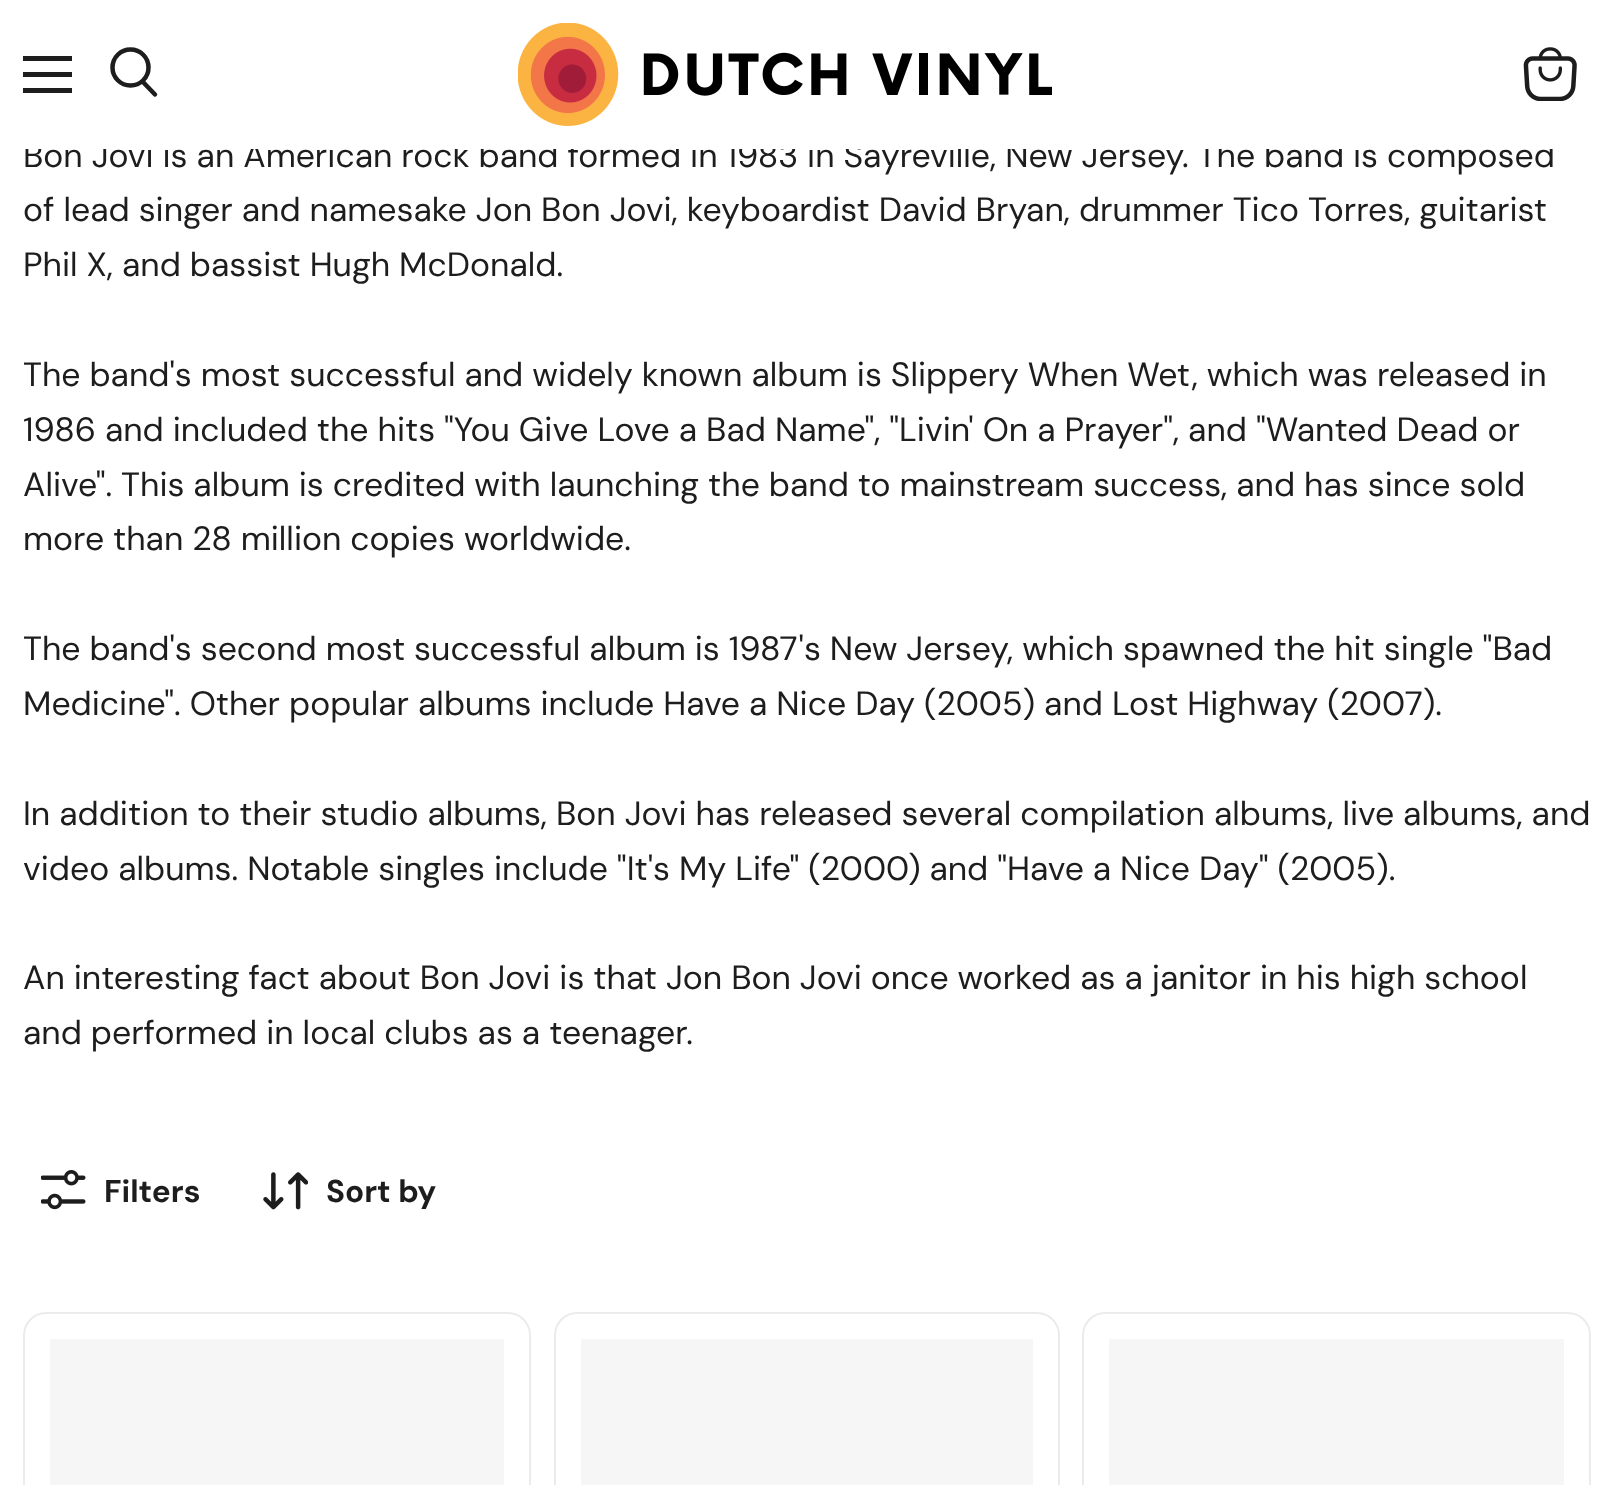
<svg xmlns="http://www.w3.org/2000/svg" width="1613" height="1485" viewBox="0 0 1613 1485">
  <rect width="100%" height="100%" fill="#fff"/>
  <path d="M23 56h49v5H23z" fill="#1d1d1d"/>
  <path d="M23 72h49v5H23z" fill="#1d1d1d"/>
  <path d="M23 88h49v5H23z" fill="#1d1d1d"/>
  <path d="M155 94.5L143 82" fill="none" stroke="#1d1d1d" stroke-width="4.5" stroke-linecap="round"/>
  <circle cx="130.5" cy="67.5" r="18" fill="none" stroke="#1d1d1d" stroke-width="4.5"/>
  <image x="518" y="23" width="534" height="103" href="img/1.png"/>
  <image x="1523" y="47" width="54" height="54" href="img/2.png"/>
  <image x="41" y="1170" width="45" height="40" href="img/3.png"/>
  <image x="263" y="1172" width="45" height="38" href="img/4.png"/>
  <rect x="24" y="1313" width="506" height="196" rx="22" fill="none" stroke="#ebebeb" stroke-width="2"/>
  <path d="M50 1339h454v146H50z" fill="#f6f6f6"/>
  <rect x="555" y="1313" width="504" height="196" rx="22" fill="none" stroke="#ebebeb" stroke-width="2"/>
  <path d="M581 1339h452v146H581z" fill="#f6f6f6"/>
  <rect x="1083" y="1313" width="507" height="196" rx="22" fill="none" stroke="#ebebeb" stroke-width="2"/>
  <path d="M1109 1339h455v146H1109z" fill="#f6f6f6"/>
  <text x="23" y="167" font-family="DM Sans" font-size="33.75" fill="#1d1d1d">Bon Jovi is an American rock band formed in 1983 in Sayreville, New Jersey. The band is composed</text>
  <path d="M25 142h1528v7H25z" fill="#fff"/>
  <g font-family="DM Sans" font-size="33.75" fill="#1d1d1d">
    <text x="23" y="221">of lead singer and namesake Jon Bon Jovi, keyboardist David Bryan, drummer Tico Torres, guitarist</text>
    <text x="23" y="276">Phil X, and bassist Hugh McDonald.</text>
    <text x="23" y="386">The band's most successful and widely known album is Slippery When Wet, which was released in</text>
    <text x="23" y="441">1986 and included the hits "You Give Love a Bad Name", "Livin' On a Prayer", and "Wanted Dead or</text>
    <text x="23" y="496">Alive". This album is credited with launching the band to mainstream success, and has since sold</text>
    <text x="23" y="550">more than 28 million copies worldwide.</text>
    <text x="23" y="660">The band's second most successful album is 1987's New Jersey, which spawned the hit single "Bad</text>
    <text x="23" y="715">Medicine". Other popular albums include Have a Nice Day (2005) and Lost Highway (2007).</text>
    <text x="23" y="825">In addition to their studio albums, Bon Jovi has released several compilation albums, live albums, and</text>
    <text x="23" y="880">video albums. Notable singles include "It's My Life" (2000) and "Have a Nice Day" (2005).</text>
    <text x="23" y="989">An interesting fact about Bon Jovi is that Jon Bon Jovi once worked as a janitor in his high school</text>
    <text x="23" y="1044">and performed in local clubs as a teenager.</text>
  </g>
  <g font-family="DM Sans" font-size="31.5" font-weight="bold" fill="#1d1d1d">
    <text x="104" y="1202">Filters</text>
    <text x="326" y="1202">Sort by</text>
  </g>
</svg>
